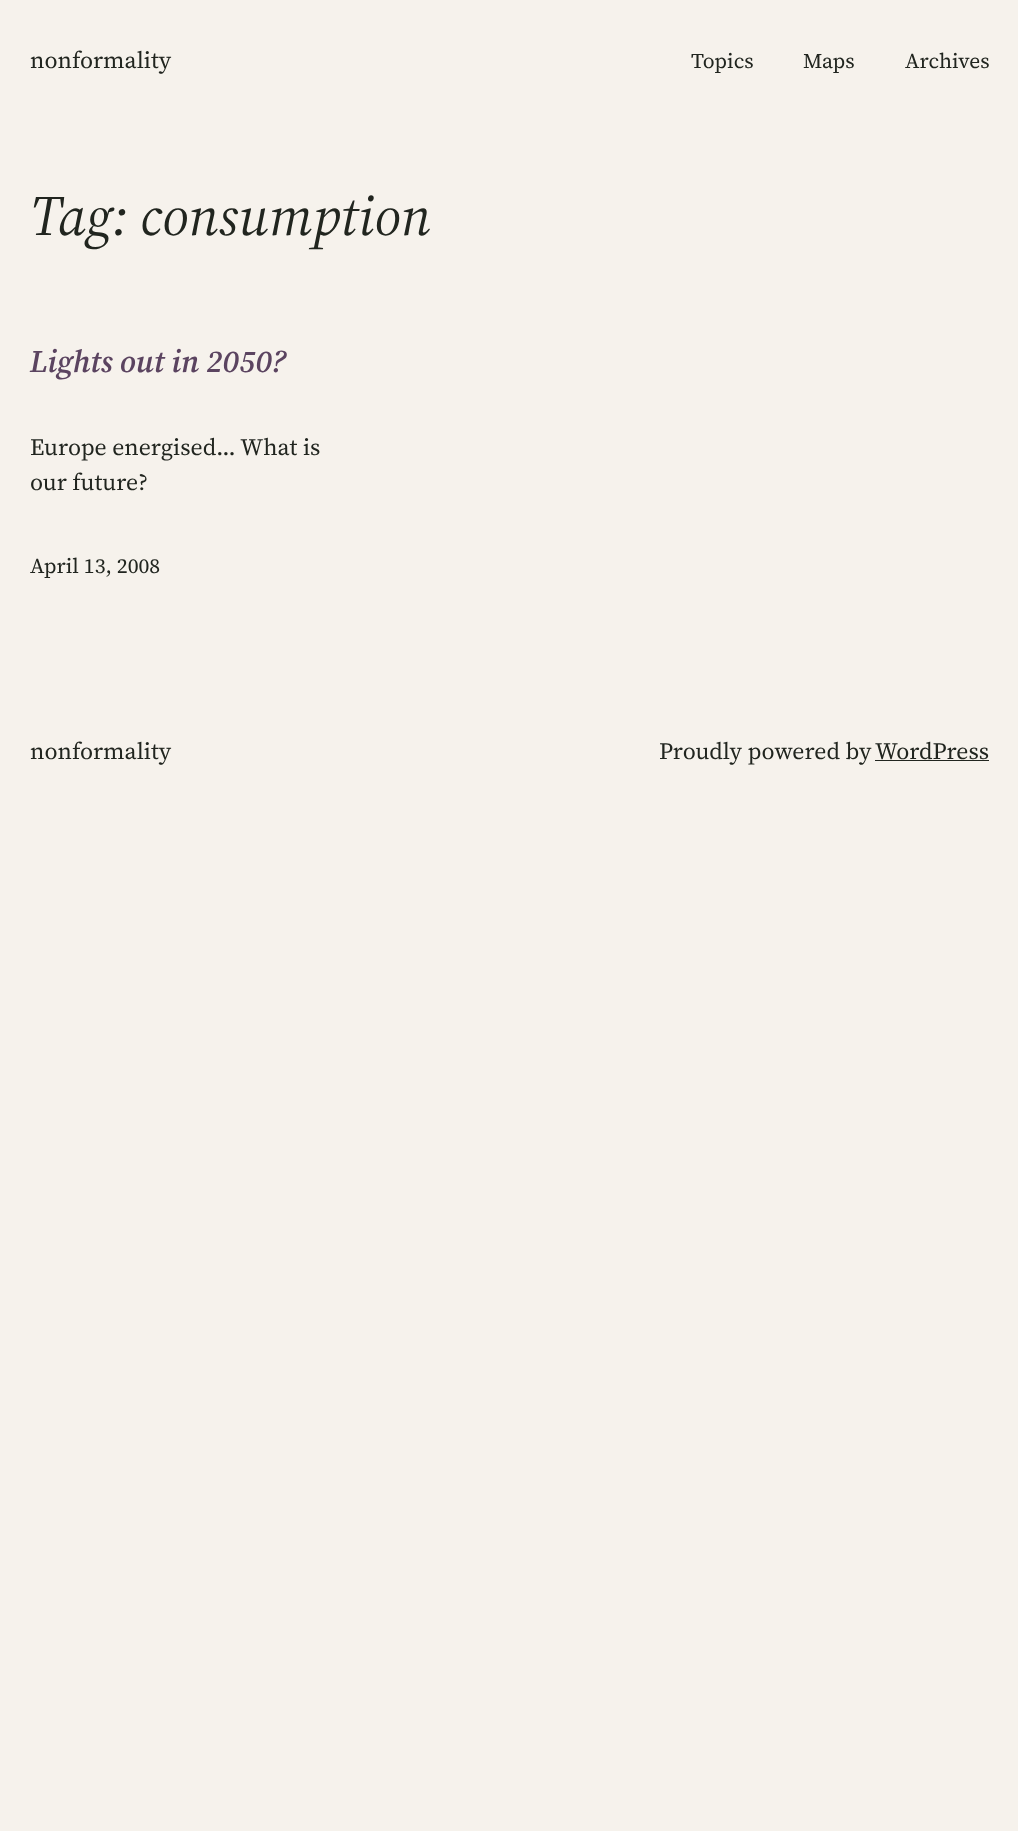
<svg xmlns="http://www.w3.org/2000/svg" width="1018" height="1831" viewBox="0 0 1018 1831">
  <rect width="100%" height="100%" fill="#f6f2ec"/>
  <path d="M875 760h114v1H875z" fill="#21251f"/>
  <text x="30" y="68" font-family="'Source Serif 4'" font-size="23.5" fill="#21251f">nonformality</text>
  <g font-family="'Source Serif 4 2'" font-size="21" fill="#21251f">
    <text x="691" y="68">Topics</text>
    <text x="803" y="68">Maps</text>
    <text x="905" y="68">Archives</text>
  </g>
  <text x="30" y="235" font-family="'Source Serif 4'" font-size="56.75" font-style="italic" fill="#21251f">Tag: consumption</text>
  <text x="30" y="372" font-family="'Source Serif 4'" font-size="31.5" font-weight="600" font-style="italic" fill="#5b4460">Lights out in 2050?</text>
  <g font-family="'Source Serif 4'" font-size="23.5" fill="#21251f">
    <text x="30" y="455">Europe energised… What is</text>
    <text x="30" y="490">our future?</text>
  </g>
  <text x="30" y="573" font-family="'Source Serif 4 2'" font-size="21" fill="#21251f">April 13, 2008</text>
  <g font-family="'Source Serif 4'" font-size="23.5" fill="#21251f">
    <text x="30" y="759">nonformality</text>
    <text x="659" y="759">Proudly powered by</text>
    <text x="875" y="759">WordPress</text>
  </g>
</svg>
